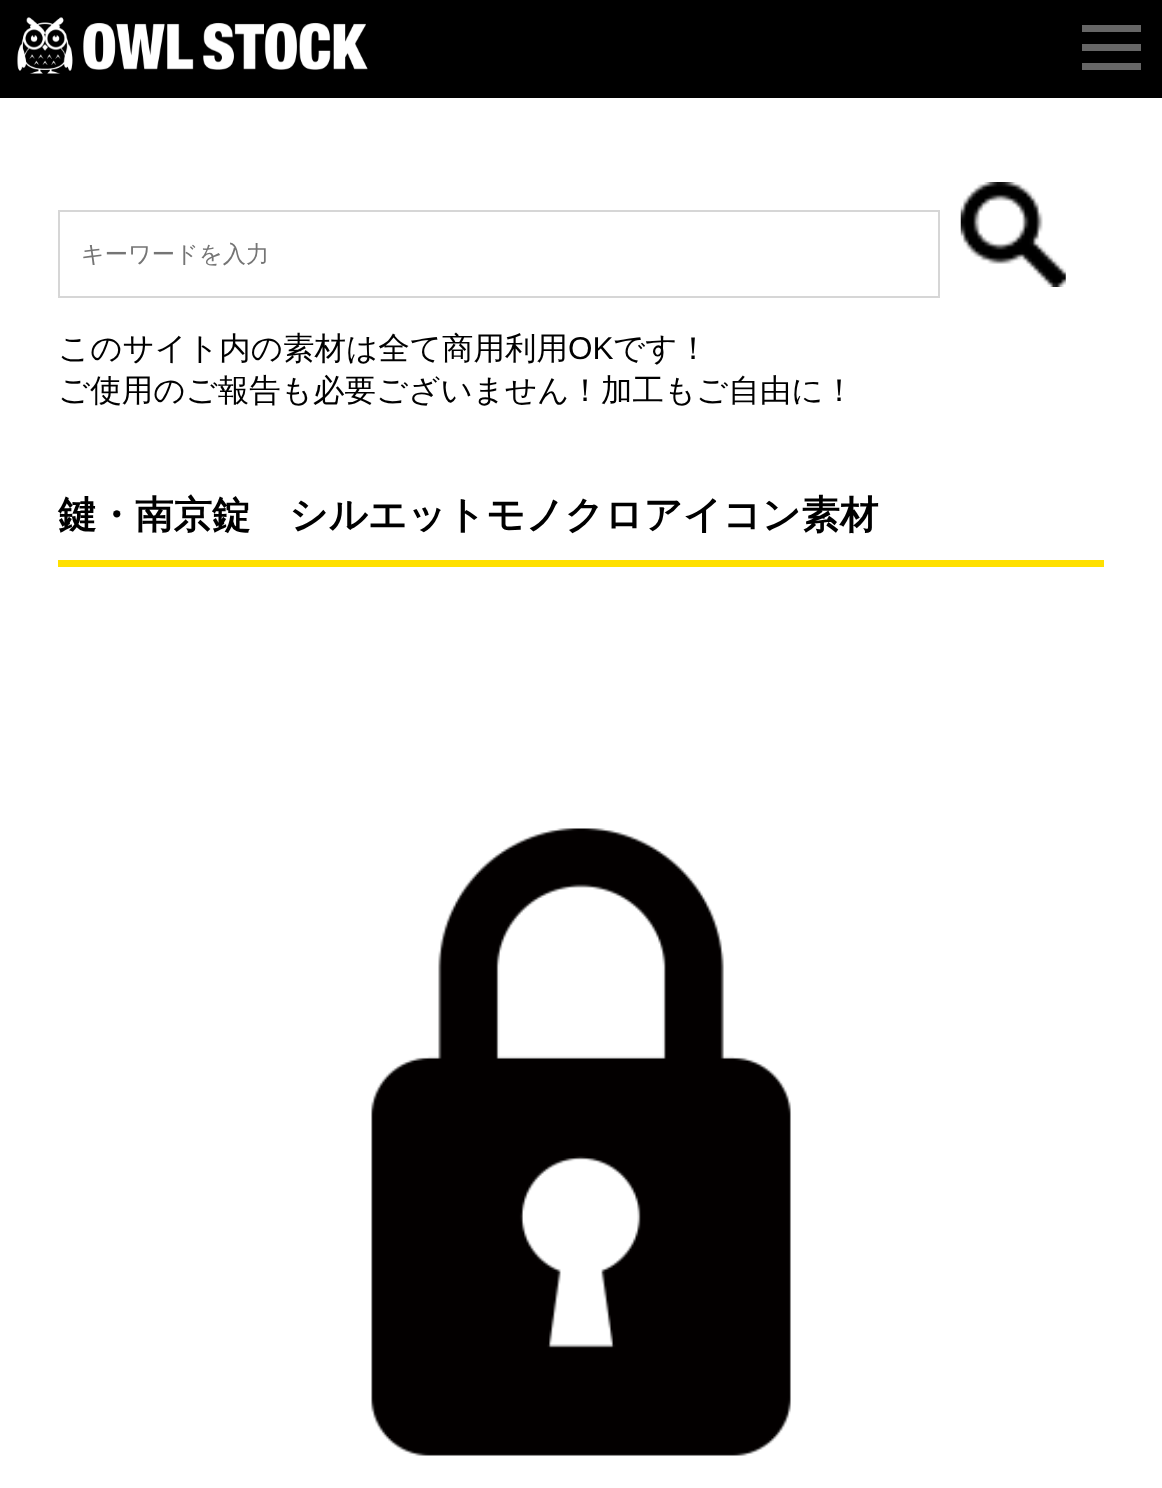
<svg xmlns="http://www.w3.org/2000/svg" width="1162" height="1488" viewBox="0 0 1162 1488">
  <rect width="100%" height="100%" fill="#fff"/>
  <path d="M0 0h1162v98H0z" fill="#000"/>
  <image x="17" y="17" width="351" height="57" href="img/1.png"/>
  <path d="M1082 25h59v7H1082z" fill="#666"/>
  <path d="M1082 44h59v7H1082z" fill="#666"/>
  <path d="M1082 63h59v7H1082z" fill="#666"/>
  <path d="M59 211h880v86H59z" fill="none" stroke="#d6d6d6" stroke-width="2"/>
  <image x="960" y="182" width="106" height="105" href="img/2.png"/>
  <path d="M58 560h1046v7H58z" fill="#ffe000"/>
  <image x="371" y="828" width="420" height="628" href="img/3.png"/>
  <text x="81" y="262" font-family="WenQuanYi Zen Hei" font-size="23.25" font-weight="500" fill="#757575">キーワードを入力</text>
  <text x="58" y="359" font-family="WenQuanYi Zen Hei" font-size="31.5" font-weight="500" fill="#000">このサイト内の素材は全て商用利用</text>
  <text x="568" y="359" font-family="Liberation Sans" font-size="31.5" fill="#000">OK</text>
  <g font-family="WenQuanYi Zen Hei" font-size="31.5" font-weight="500" fill="#000">
    <text x="613" y="359">です！</text>
    <text x="58" y="401">ご使用のご報告も必要ございません！加工もご自由に！</text>
  </g>
  <text x="58" y="528" font-family="WenQuanYi Zen Hei" font-size="38.5" font-weight="bold" fill="#000">鍵・南京錠　シルエットモノクロアイコン素材</text>
</svg>
